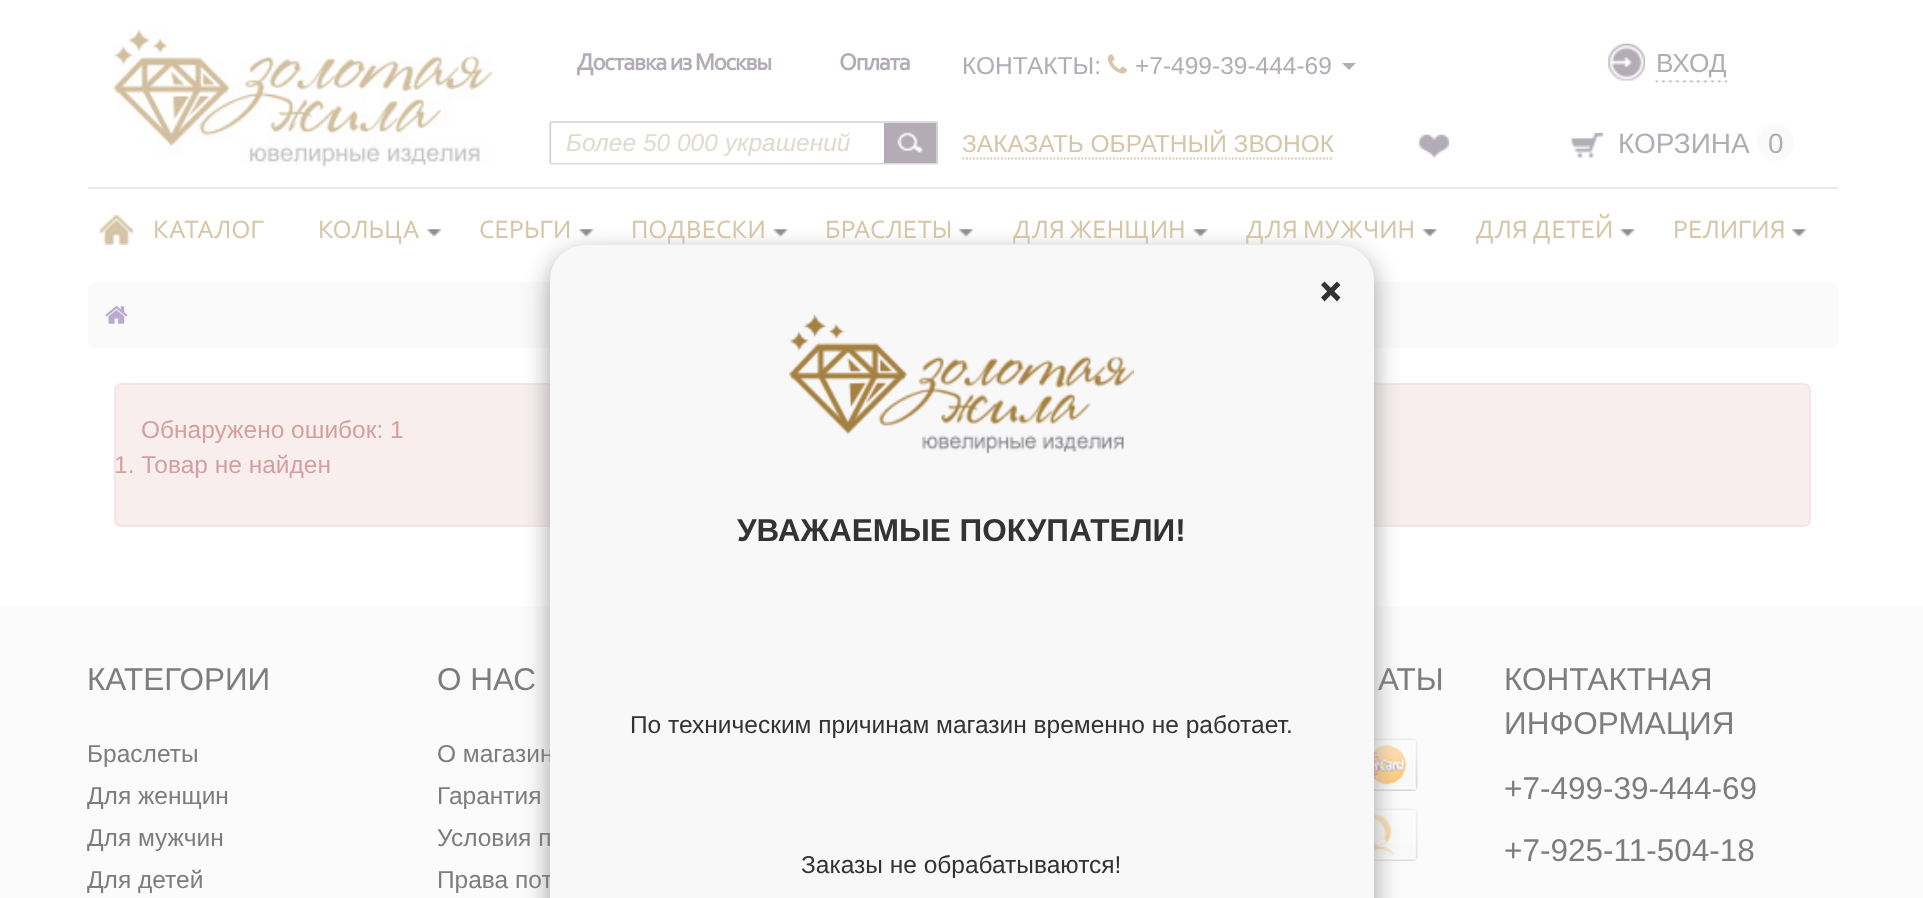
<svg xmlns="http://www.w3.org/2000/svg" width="1923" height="898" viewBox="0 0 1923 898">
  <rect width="100%" height="100%" fill="#fff"/>
  <path d="M936 122h2v42H936z" fill="#d4ced6"/>
  <image x="113" y="29" width="379" height="138" href="img/1.png"/>
  <path d="M551 121h386v2H551z" fill="#dfdbe1"/>
  <path d="M936 122h1v1H936z" fill="#d0cad3"/>
  <path d="M937 163.5H550.5" fill="none" stroke="#dbd7de" stroke-width="1.8"/>
  <path d="M550.5 163.5V122" fill="none" stroke="#cfc8d2" stroke-width="1.8"/>
  <path d="M551 123h331v40H551z" fill="#fff"/>
  <path d="M884 123h52v40H884z" fill="#b3acb6"/>
  <image x="897" y="132" width="26" height="21" href="img/2.png"/>
  <image x="1107" y="54" width="20" height="20" href="img/3.png"/>
  <path d="M1342 63H1356L1349 70Z" fill="#b3acb6"/>
  <path d="M962.5 158.5H1333.5" fill="none" stroke="#d6c5a7" stroke-width="1.8" stroke-dasharray="1.75 1.75"/>
  <image x="1419" y="134" width="30" height="24" href="img/4.png"/>
  <image x="1655" y="80" width="73" height="3" href="img/5.png"/>
  <image x="1608" y="43" width="37" height="38" href="img/6.png"/>
  <image x="1571" y="133" width="32" height="25" href="img/7.png"/>
  <rect x="1757" y="124" width="37" height="37" rx="18" fill="#fafafa"/>
  <path d="M88 187h1750v2H88z" fill="#e9e9e9"/>
  <image x="99" y="215" width="34" height="30" href="img/8.png"/>
  <image x="427" y="229" width="14" height="8" href="img/9.png"/>
  <image x="579" y="229" width="15" height="8" href="img/10.png"/>
  <image x="773" y="229" width="15" height="8" href="img/11.png"/>
  <image x="959" y="229" width="14" height="8" href="img/9.png"/>
  <image x="1193" y="229" width="15" height="8" href="img/11.png"/>
  <image x="1422" y="229" width="15" height="8" href="img/12.png"/>
  <image x="1620" y="229" width="15" height="8" href="img/11.png"/>
  <image x="1792" y="229" width="14" height="8" href="img/13.png"/>
  <rect x="88" y="282" width="1750" height="66" rx="7" fill="#fafafa"/>
  <image x="105" y="306" width="23" height="18" href="img/14.png"/>
  <rect x="115" y="384" width="1695" height="142" rx="6" fill="#f8eeee" stroke="#f5e5e8" stroke-width="2"/>
  <path d="M0 606h1923v292H0z" fill="#fbfbfb"/>
  <image x="1374" y="738" width="44" height="53" href="img/15.png"/>
  <image x="1374" y="808" width="44" height="53" href="img/16.png"/>
  <rect x="550" y="254" width="824" height="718" rx="35" fill="#9f9f9f" filter="blur(13px)"/>
  <g font-family="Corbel" font-size="24.5" font-weight="bold" letter-spacing="-1.25" fill="#b3acb6">
    <text x="576" y="70">Доставка из Москвы</text>
    <text x="839" y="70">Оплата</text>
  </g>
  <text x="566" y="151" font-family="Liberation Sans" font-size="24.5" font-style="italic" fill="#e1dad1">Более 50 000 украшений</text>
  <g font-family="Liberation Sans" font-size="24.5" fill="#b3acb6">
    <text x="962" y="74">КОНТАКТЫ:</text>
    <text x="1135" y="74">+7-499-39-444-69</text>
  </g>
  <text x="962" y="152" font-family="Liberation Sans" font-size="24.5" fill="#d6c5a7">ЗАКАЗАТЬ ОБРАТНЫЙ ЗВОНОК</text>
  <text x="1656" y="72" font-family="Liberation Sans" font-size="26.25" fill="#b3acb6">ВХОД</text>
  <g font-family="Liberation Sans" font-size="28" fill="#b3acb6">
    <text x="1618" y="153">КОРЗИНА</text>
    <text x="1768" y="153">0</text>
  </g>
  <g font-family="Corbel" font-size="26.25" fill="#d6c5a7">
    <text x="153" y="238">КАТАЛОГ</text>
    <text x="318" y="238">КОЛЬЦА</text>
    <text x="479" y="238">СЕРЬГИ</text>
    <text x="631" y="238">ПОДВЕСКИ</text>
    <text x="825" y="238">БРАСЛЕТЫ</text>
    <text x="1012" y="238">ДЛЯ ЖЕНЩИН</text>
    <text x="1245" y="238">ДЛЯ МУЖЧИН</text>
    <text x="1475" y="238">ДЛЯ ДЕТЕЙ</text>
    <text x="1673" y="238">РЕЛИГИЯ</text>
  </g>
  <g font-family="Liberation Sans" font-size="24.5" fill="#d3a09f">
    <text x="141" y="438">Обнаружено ошибок: 1</text>
    <text x="114" y="473">1. Товар не найден</text>
  </g>
  <text x="87" y="690" font-family="Liberation Sans" font-size="31.5" fill="#7d7d7d">КАТЕГОРИИ</text>
  <g font-family="Liberation Sans" font-size="24.5" fill="#7d7d7d">
    <text x="87" y="762">Браслеты</text>
    <text x="87" y="804">Для женщин</text>
    <text x="87" y="846">Для мужчин</text>
    <text x="87" y="888">Для детей</text>
  </g>
  <text x="437" y="690" font-family="Liberation Sans" font-size="31.5" fill="#7d7d7d">О НАС</text>
  <g font-family="Liberation Sans" font-size="24.5" fill="#7d7d7d">
    <text x="437" y="762">О магазин</text>
    <text x="437" y="804">Гарантия</text>
    <text x="437" y="846">Условия п</text>
    <text x="437" y="888">Права пот</text>
  </g>
  <g font-family="Liberation Sans" font-size="31.5" fill="#7d7d7d">
    <text x="1378" y="690">АТЫ</text>
    <text x="1504" y="690">КОНТАКТНАЯ</text>
    <text x="1504" y="734">ИНФОРМАЦИЯ</text>
    <text x="1504" y="799">+7-499-39-444-69</text>
    <text x="1504" y="861">+7-925-11-504-18</text>
  </g>
  <rect x="550" y="245" width="824" height="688" rx="35" fill="#f8f8f8"/>
  <path d="M1337 281.5L1340.5 285L1324.5 301.5L1321 297.5Z" fill="#333"/>
  <path d="M1321 285L1324.5 281.5L1340.5 297.5L1337 301.5Z" fill="#333"/>
  <image x="789" y="315" width="345" height="139" href="img/17.png"/>
  <text x="737" y="541" font-family="Liberation Sans" font-size="31.5" font-weight="bold" fill="#333">УВАЖАЕМЫЕ ПОКУПАТЕЛИ!</text>
  <g font-family="Liberation Sans" font-size="24.5" fill="#333">
    <text x="630" y="733">По техническим причинам магазин временно не работает.</text>
    <text x="801" y="873">Заказы не обрабатываются!</text>
  </g>
</svg>
